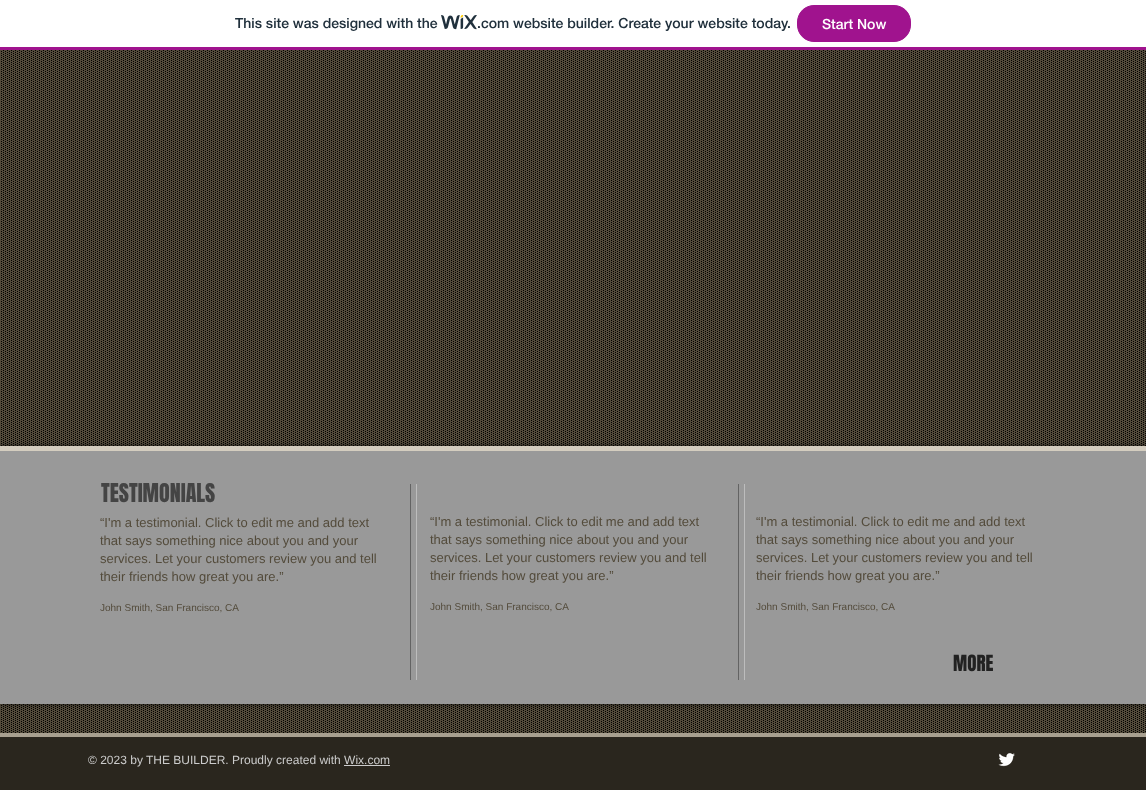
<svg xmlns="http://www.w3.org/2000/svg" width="1146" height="790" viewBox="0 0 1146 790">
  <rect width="100%" height="100%" fill="#fff"/>
  <path d="M0 47h1146v3H0z" fill="#a0138e"/>
  <image x="441" y="15" width="36" height="15" href="img/1.png"/>
  <rect x="797.5" y="5.5" width="113" height="36" rx="16.5" fill="#a0138e" stroke="#a0138e"/>
  <path d="M0 50h1146v683H0z" fill="#534b3b"/>
  <image x="1" y="50" width="1145" height="683" href="img/2.png"/>
  <path d="M0 446h1146v258H0z" fill="#000000b3" filter="blur(2.5px)"/>
  <path d="M0 451h1146v253H0z" fill="#999"/>
  <path d="M0 446h1146v5H0z" fill="#d4cdbf"/>
  <path d="M416 484h1v196H416z" fill="#bdbdbd"/>
  <path d="M410 484h1v196H410z" fill="#636363"/>
  <path d="M744 484h1v196H744z" fill="#bdbdbd"/>
  <path d="M738 484h1v196H738z" fill="#636363"/>
  <path d="M0 737h1146v53H0z" fill="#2a261e"/>
  <path d="M0 733h1146v4H0z" fill="#a8a090"/>
  <path d="M344 765h46v1H344z" fill="#ccc"/>
  <image x="998" y="753" width="17" height="14" href="img/3.png"/>
  <g font-family="'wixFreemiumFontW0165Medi'" font-size="14" font-weight="500" fill="#20303c">
    <text x="235" y="28">This site was designed with the</text>
    <text x="477" y="28">.com website builder. Create your website today.</text>
  </g>
  <text x="822" y="29" font-family="'wixFreemiumFontW0165Medi'" font-size="14" font-weight="500" fill="#fff">Start Now</text>
  <text x="101" y="502" font-family="Anton" font-size="22" fill="#444">TESTIMONIALS</text>
  <g font-family="Liberation Sans" font-size="13" fill="#534b3b">
    <text x="430" y="526">“I'm a testimonial. Click to edit me and add text</text>
    <text x="430" y="544">that says something nice about you and your</text>
    <text x="430" y="562">services. Let your customers review you and tell</text>
    <text x="430" y="580">their friends how great you are.”</text>
  </g>
  <text x="430" y="610" font-family="Liberation Sans" font-size="10" fill="#534b3b">John Smith, San Francisco, CA</text>
  <g font-family="Liberation Sans" font-size="13" fill="#534b3b">
    <text x="756" y="526">“I'm a testimonial. Click to edit me and add text</text>
    <text x="756" y="544">that says something nice about you and your</text>
    <text x="756" y="562">services. Let your customers review you and tell</text>
    <text x="756" y="580">their friends how great you are.”</text>
  </g>
  <text x="756" y="610" font-family="Liberation Sans" font-size="10" fill="#534b3b">John Smith, San Francisco, CA</text>
  <g font-family="Liberation Sans" font-size="13" fill="#534b3b">
    <text x="100" y="527">“I'm a testimonial. Click to edit me and add text</text>
    <text x="100" y="545">that says something nice about you and your</text>
    <text x="100" y="563">services. Let your customers review you and tell</text>
    <text x="100" y="581">their friends how great you are.”</text>
  </g>
  <text x="100" y="611" font-family="Liberation Sans" font-size="10" fill="#534b3b">John Smith, San Francisco, CA</text>
  <text x="953" y="671" font-family="Anton" font-size="19" fill="#222">MORE</text>
  <text x="88" y="764" font-family="Liberation Sans" font-size="12" fill="#ccc">© 2023 by THE BUILDER. Proudly created with Wix.com</text>
</svg>
